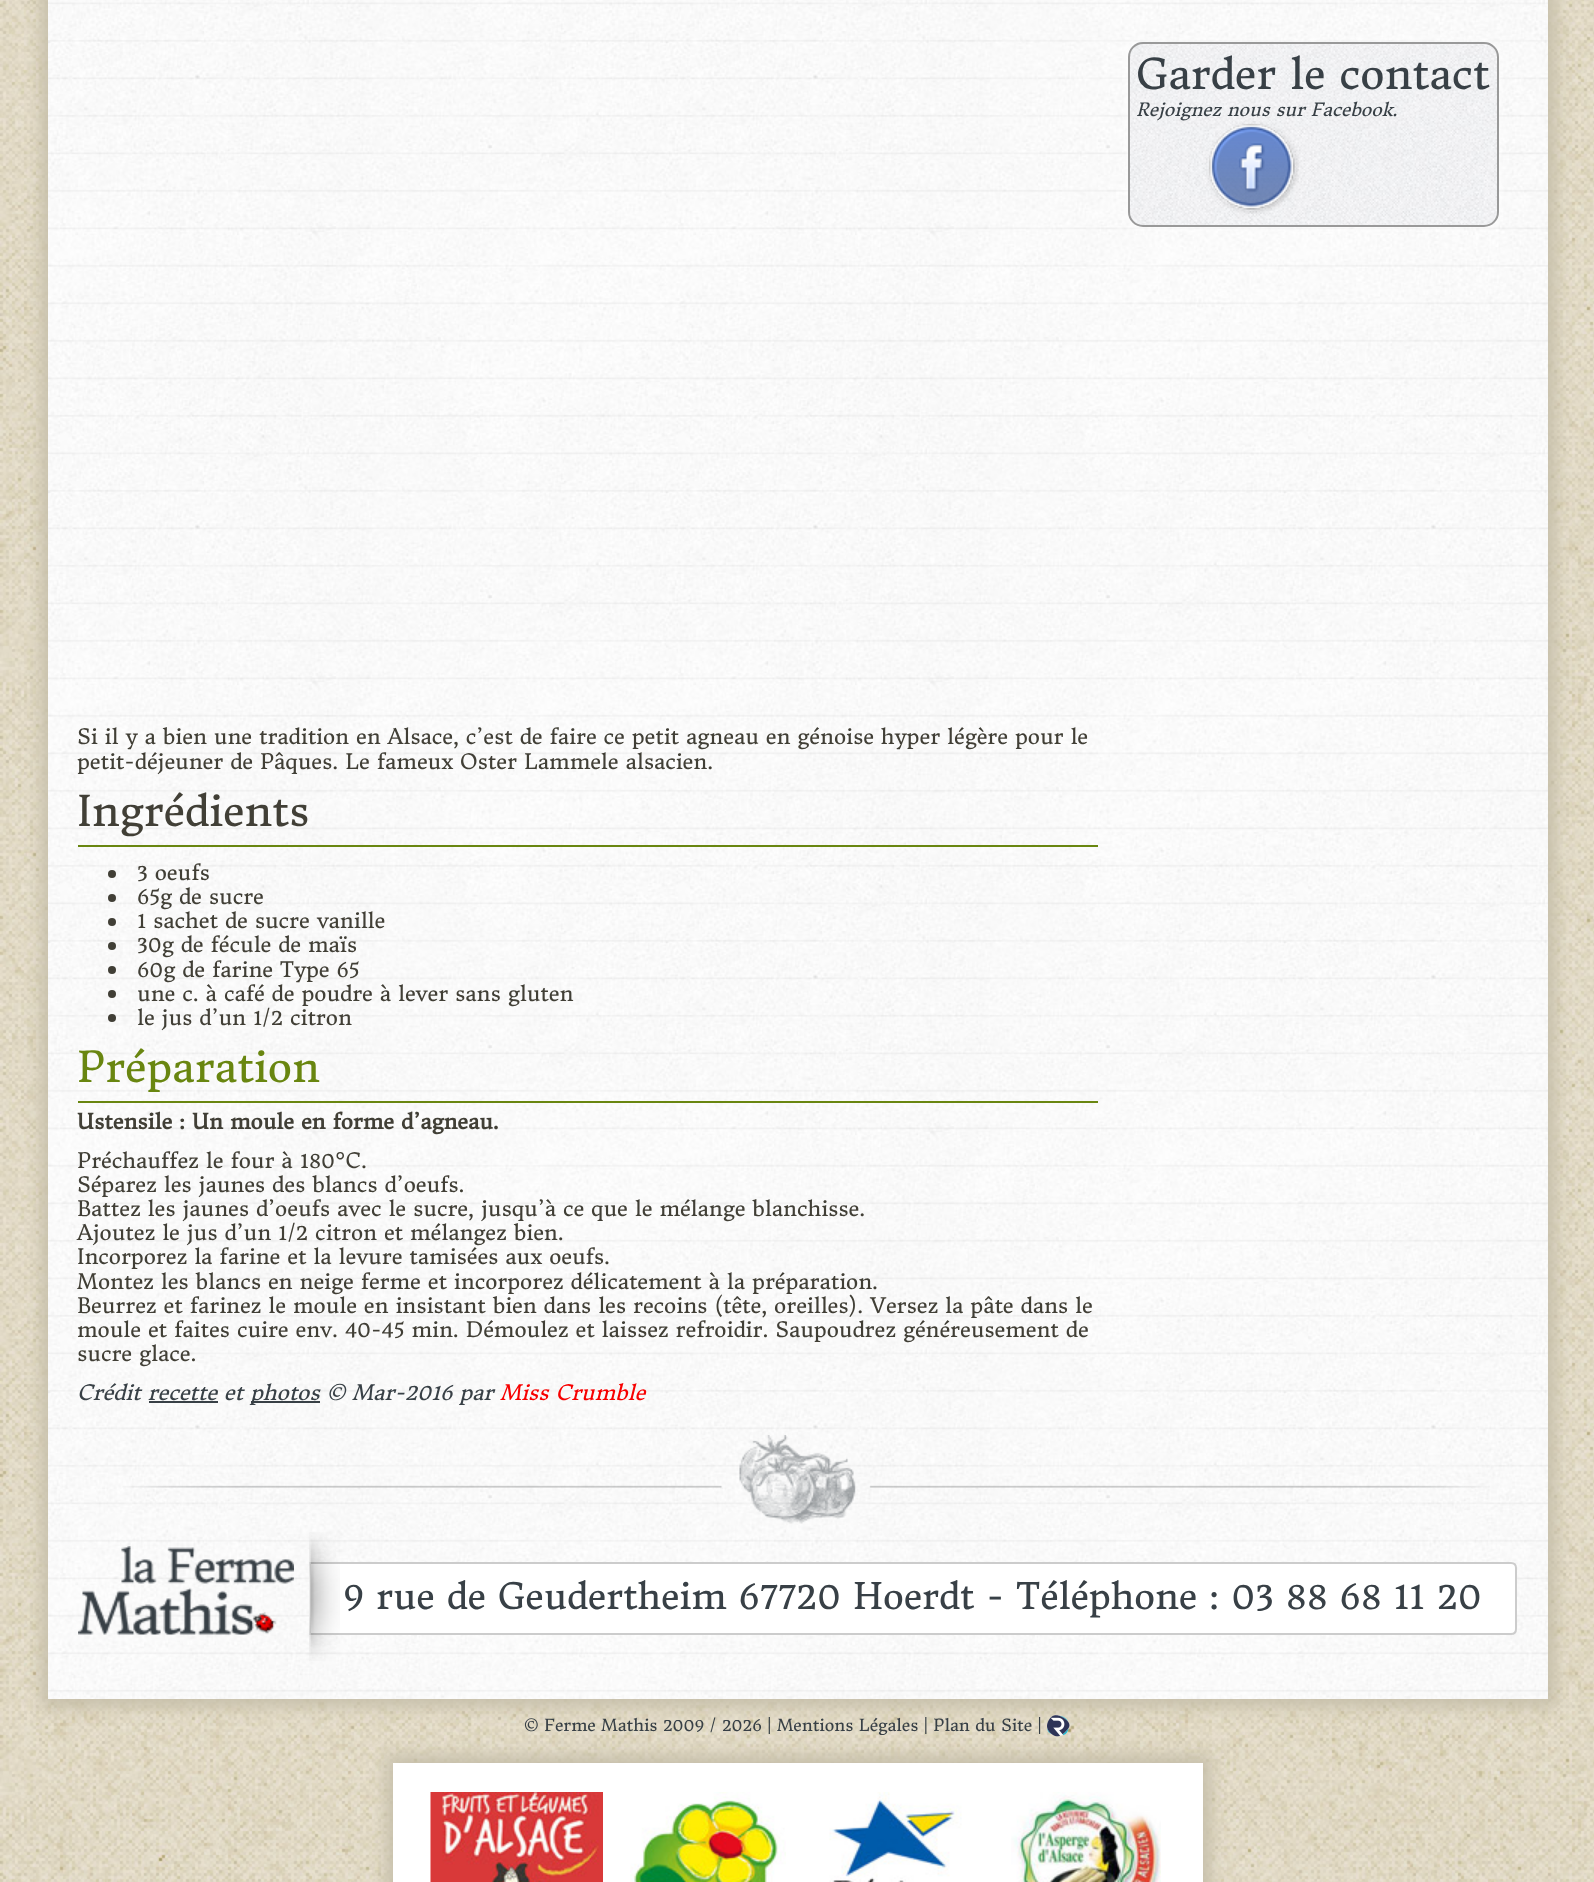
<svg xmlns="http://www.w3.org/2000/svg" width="1594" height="1882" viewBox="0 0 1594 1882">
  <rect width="100%" height="100%" fill="#fff"/>
  <image x="0" y="0" width="1594" height="1882" href="img/1.png"/>
  <path d="M41 -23h1515v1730H41z" fill="#c7c0ab" filter="blur(7.5px)"/>
  <image x="48" y="0" width="1500" height="1699" href="img/2.png"/>
  <rect x="1128" y="42" width="371" height="185" rx="15" fill="#fff" filter="blur(4px)"/>
  <image x="1128" y="41" width="371" height="184" href="img/3.png"/>
  <rect x="1129" y="43" width="369" height="183" rx="14" fill="none" stroke="#999" stroke-width="2"/>
  <image x="1206" y="121" width="93" height="93" href="img/4.png"/>
  <path d="M78 845h1020v2H78z" fill="#698610"/>
  <circle cx="112" cy="874" r="4" fill="#413f36"/>
  <circle cx="112" cy="898" r="4" fill="#413f36"/>
  <circle cx="112" cy="922" r="4" fill="#413f36"/>
  <circle cx="112" cy="946" r="4" fill="#413f36"/>
  <circle cx="112" cy="970" r="4" fill="#413f36"/>
  <circle cx="112" cy="994" r="4" fill="#413f36"/>
  <circle cx="112" cy="1018" r="4" fill="#413f36"/>
  <path d="M78 1101h1020v2H78z" fill="#698610"/>
  <path d="M149 1401h69v2H149z" fill="#384046"/>
  <path d="M251 1401h69v2H251z" fill="#384046"/>
  <image x="122" y="1435" width="1368" height="89" href="img/5.png"/>
  <image x="78" y="1546" width="216" height="89" href="img/6.png"/>
  <path d="M310 1563H1511C1514 1563 1516 1565 1516 1568V1629C1516 1632 1514 1634 1511 1634H310Z" fill="#fff" stroke="#ccc" stroke-width="2"/>
  <image x="309" y="1532" width="31" height="129" href="img/7.png"/>
  <path d="M386 1755h825v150H386z" fill="#c7c0ab" filter="blur(7.5px)"/>
  <image x="1047" y="1715" width="23" height="22" href="img/8.png"/>
  <path d="M393 1763h810v119H393z" fill="#fff"/>
  <image x="430" y="1792" width="173" height="90" href="img/9.png"/>
  <image x="630" y="1792" width="156" height="90" href="img/10.png"/>
  <image x="829" y="1792" width="133" height="90" href="img/11.png"/>
  <image x="1011" y="1792" width="150" height="90" href="img/12.png"/>
  <text x="1136" y="89" font-family="Donegal One" font-size="42" fill="#384046">Garder le contact</text>
  <text x="1136" y="116" font-family="Donegal One" font-size="18" font-style="italic" fill="#384046">Rejoignez nous sur Facebook.</text>
  <g font-family="Donegal One" font-size="21" fill="#413f36">
    <text x="77" y="744">Si il y a bien une tradition en Alsace, c’est de faire ce petit agneau en génoise hyper légère pour le</text>
    <text x="77" y="769">petit-déjeuner de Pâques. Le fameux Oster Lammele alsacien.</text>
  </g>
  <text x="77" y="826" font-family="Donegal One" font-size="42" fill="#413f36">Ingrédients</text>
  <g font-family="Donegal One" font-size="21" fill="#413f36">
    <text x="137" y="880">3 oeufs</text>
    <text x="137" y="904">65g de sucre</text>
    <text x="137" y="928">1 sachet de sucre vanille</text>
    <text x="137" y="952">30g de fécule de maïs</text>
    <text x="137" y="977">60g de farine Type 65</text>
    <text x="137" y="1001">une c. à café de poudre à lever sans gluten</text>
    <text x="137" y="1025">le jus d’un 1/2 citron</text>
  </g>
  <text x="77" y="1082" font-family="Donegal One" font-size="42" fill="#698610">Préparation</text>
  <text x="77" y="1129" font-family="Donegal One" font-size="21" font-weight="bold" fill="#413f36">Ustensile : Un moule en forme d’agneau.</text>
  <g font-family="Donegal One" font-size="21" fill="#413f36">
    <text x="77" y="1168">Préchauffez le four à 180°C.</text>
    <text x="77" y="1192">Séparez les jaunes des blancs d’oeufs.</text>
    <text x="77" y="1216">Battez les jaunes d’oeufs avec le sucre, jusqu’à ce que le mélange blanchisse.</text>
    <text x="77" y="1240">Ajoutez le jus d’un 1/2 citron et mélangez bien.</text>
    <text x="77" y="1264">Incorporez la farine et la levure tamisées aux oeufs.</text>
    <text x="77" y="1289">Montez les blancs en neige ferme et incorporez délicatement à la préparation.</text>
    <text x="77" y="1313">Beurrez et farinez le moule en insistant bien dans les recoins (tête, oreilles). Versez la pâte dans le</text>
    <text x="77" y="1337">moule et faites cuire env. 40-45 min. Démoulez et laissez refroidir. Saupoudrez généreusement de</text>
    <text x="77" y="1361">sucre glace.</text>
  </g>
  <g font-family="Donegal One" font-size="21" font-style="italic" fill="#384046">
    <text x="77" y="1400">Crédit recette et</text>
    <text x="250" y="1400">photos © Mar-2016 par</text>
  </g>
  <text x="500" y="1400" font-family="Donegal One" font-size="21" font-style="italic" fill="#f70000">Miss Crumble</text>
  <text x="343" y="1609" font-family="Donegal One" font-size="36" fill="#384046">9 rue de Geudertheim 67720 Hoerdt - Téléphone : 03 88 68 11 20</text>
  <text x="524" y="1731" font-family="Donegal One" font-size="16.5" fill="#384046">© Ferme Mathis 2009 / 2026 | Mentions Légales | Plan du Site |</text>
</svg>
